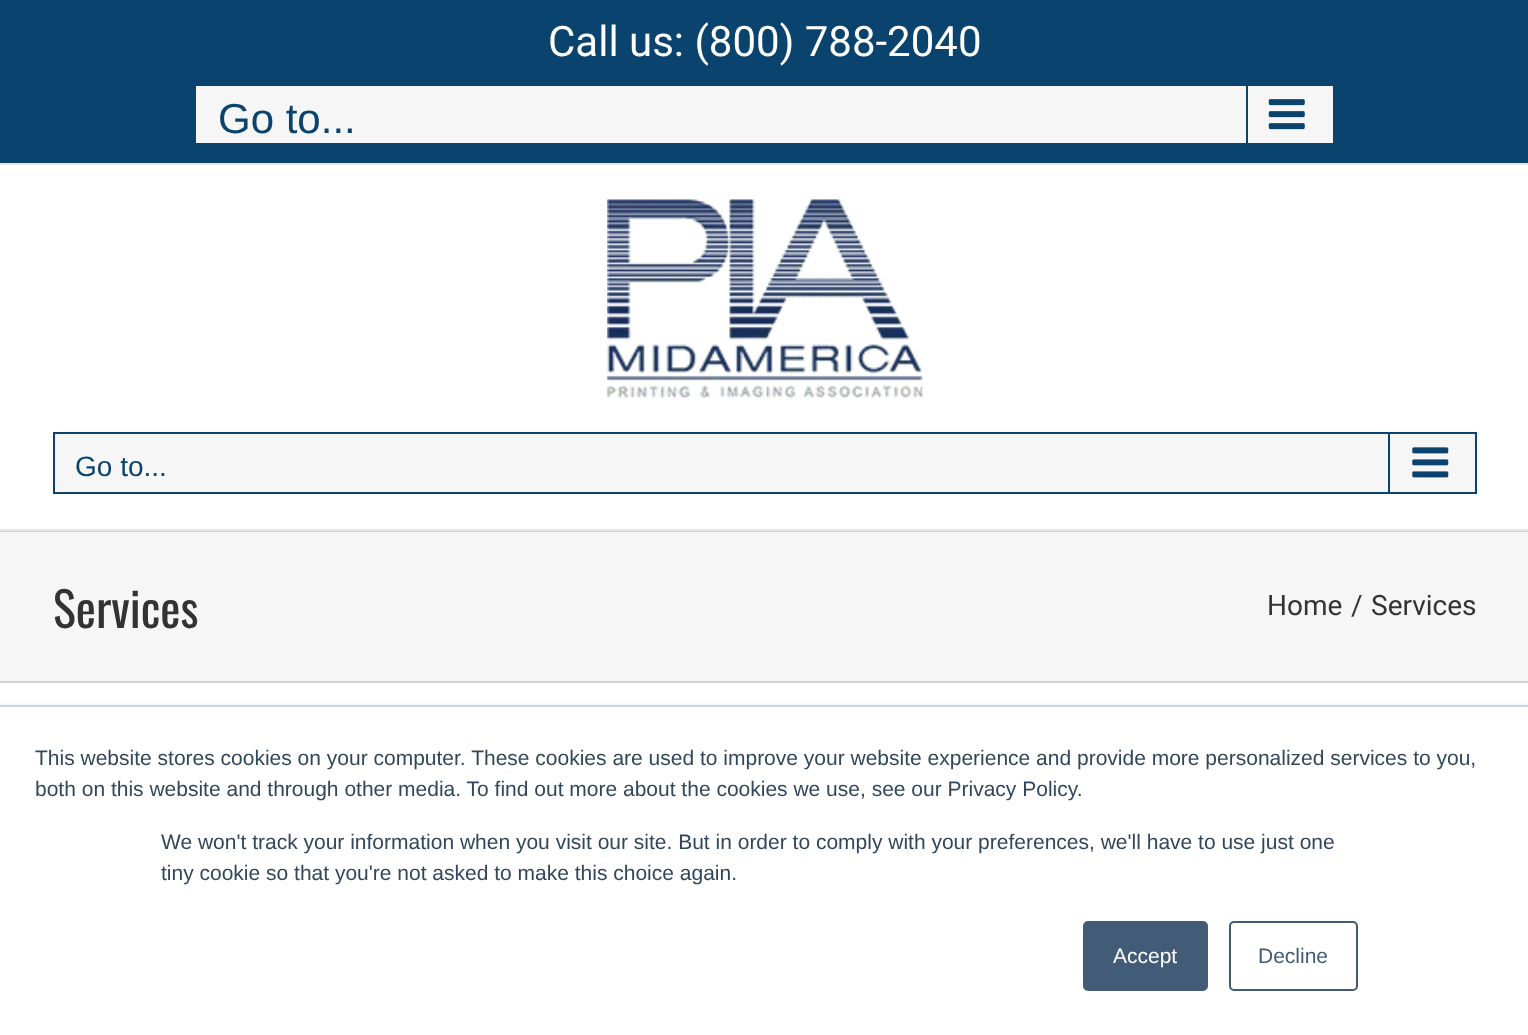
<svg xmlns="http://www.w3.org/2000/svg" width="1528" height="1035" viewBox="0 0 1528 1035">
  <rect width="100%" height="100%" fill="#fff"/>
  <path d="M0 0h1528v163H0z" fill="#0a436e"/>
  <path d="M0 163h1528v2H0z" fill="#e5e5e5"/>
  <path d="M196 86h1137v57H196z" fill="#f6f6f6"/>
  <path d="M1246 86h2v58H1246z" fill="#0a436e"/>
  <image x="1268" y="99" width="37" height="31" href="img/1.png"/>
  <path d="M0 529h1528v2H0z" fill="#e5e5e5"/>
  <image x="607" y="199" width="316" height="199" href="img/2.png"/>
  <path d="M54 433h1422v60H54z" fill="#f6f6f6" stroke="#0a436e" stroke-width="2"/>
  <path d="M1388 434h2v58H1388z" fill="#0a436e"/>
  <image x="1412" y="447" width="37" height="31" href="img/3.png"/>
  <path d="M0 532h1528v149H0z" fill="#f6f6f6"/>
  <path d="M0 531h1528v1H0z" fill="#d2d3d4"/>
  <path d="M0 681h1528v2H0z" fill="#d2d3d4"/>
  <path d="M0 704h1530v330H0z" fill="#eaf0f6" filter="blur(2.5px)"/>
  <path d="M0 707h1528v328H0z" fill="#fff"/>
  <path d="M0 705h1528v2H0z" fill="#cbd6e2"/>
  <rect x="1084" y="922" width="123" height="68" rx="4" fill="#425b76" stroke="#425b76" stroke-width="2"/>
  <rect x="1230" y="922" width="127" height="68" rx="4" fill="none" stroke="#425b76" stroke-width="2"/>
  <text x="548" y="56" font-family="Roboto" font-size="42" fill="#fff">Call us: (800) 788-2040</text>
  <text x="218" y="133" font-family="Liberation Sans" font-size="42" fill="#0a436e">Go to...</text>
  <text x="75" y="476" font-family="Liberation Sans" font-size="28" fill="#0a436e">Go to...</text>
  <text x="53" y="628" font-family="Oswald" font-size="48" fill="#333">Services</text>
  <g font-family="Roboto" font-size="28" fill="#333">
    <text x="1267" y="615">Home</text>
    <text x="1351" y="615">/</text>
    <text x="1371" y="615">Services</text>
  </g>
  <g font-family="Liberation Sans" font-size="21" fill="#33475b">
    <text x="35" y="765">This website stores cookies on your computer. These cookies are used to improve your website experience and provide more personalized services to you,</text>
    <text x="35" y="796">both on this website and through other media. To find out more about the cookies we use, see our Privacy Policy.</text>
    <text x="161" y="849">We won't track your information when you visit our site. But in order to comply with your preferences, we'll have to use just one</text>
    <text x="161" y="880">tiny cookie so that you're not asked to make this choice again.</text>
  </g>
  <text x="1113" y="963" font-family="Liberation Sans" font-size="21" fill="#fff">Accept</text>
  <text x="1258" y="963" font-family="Liberation Sans" font-size="21" fill="#425b76">Decline</text>
</svg>
